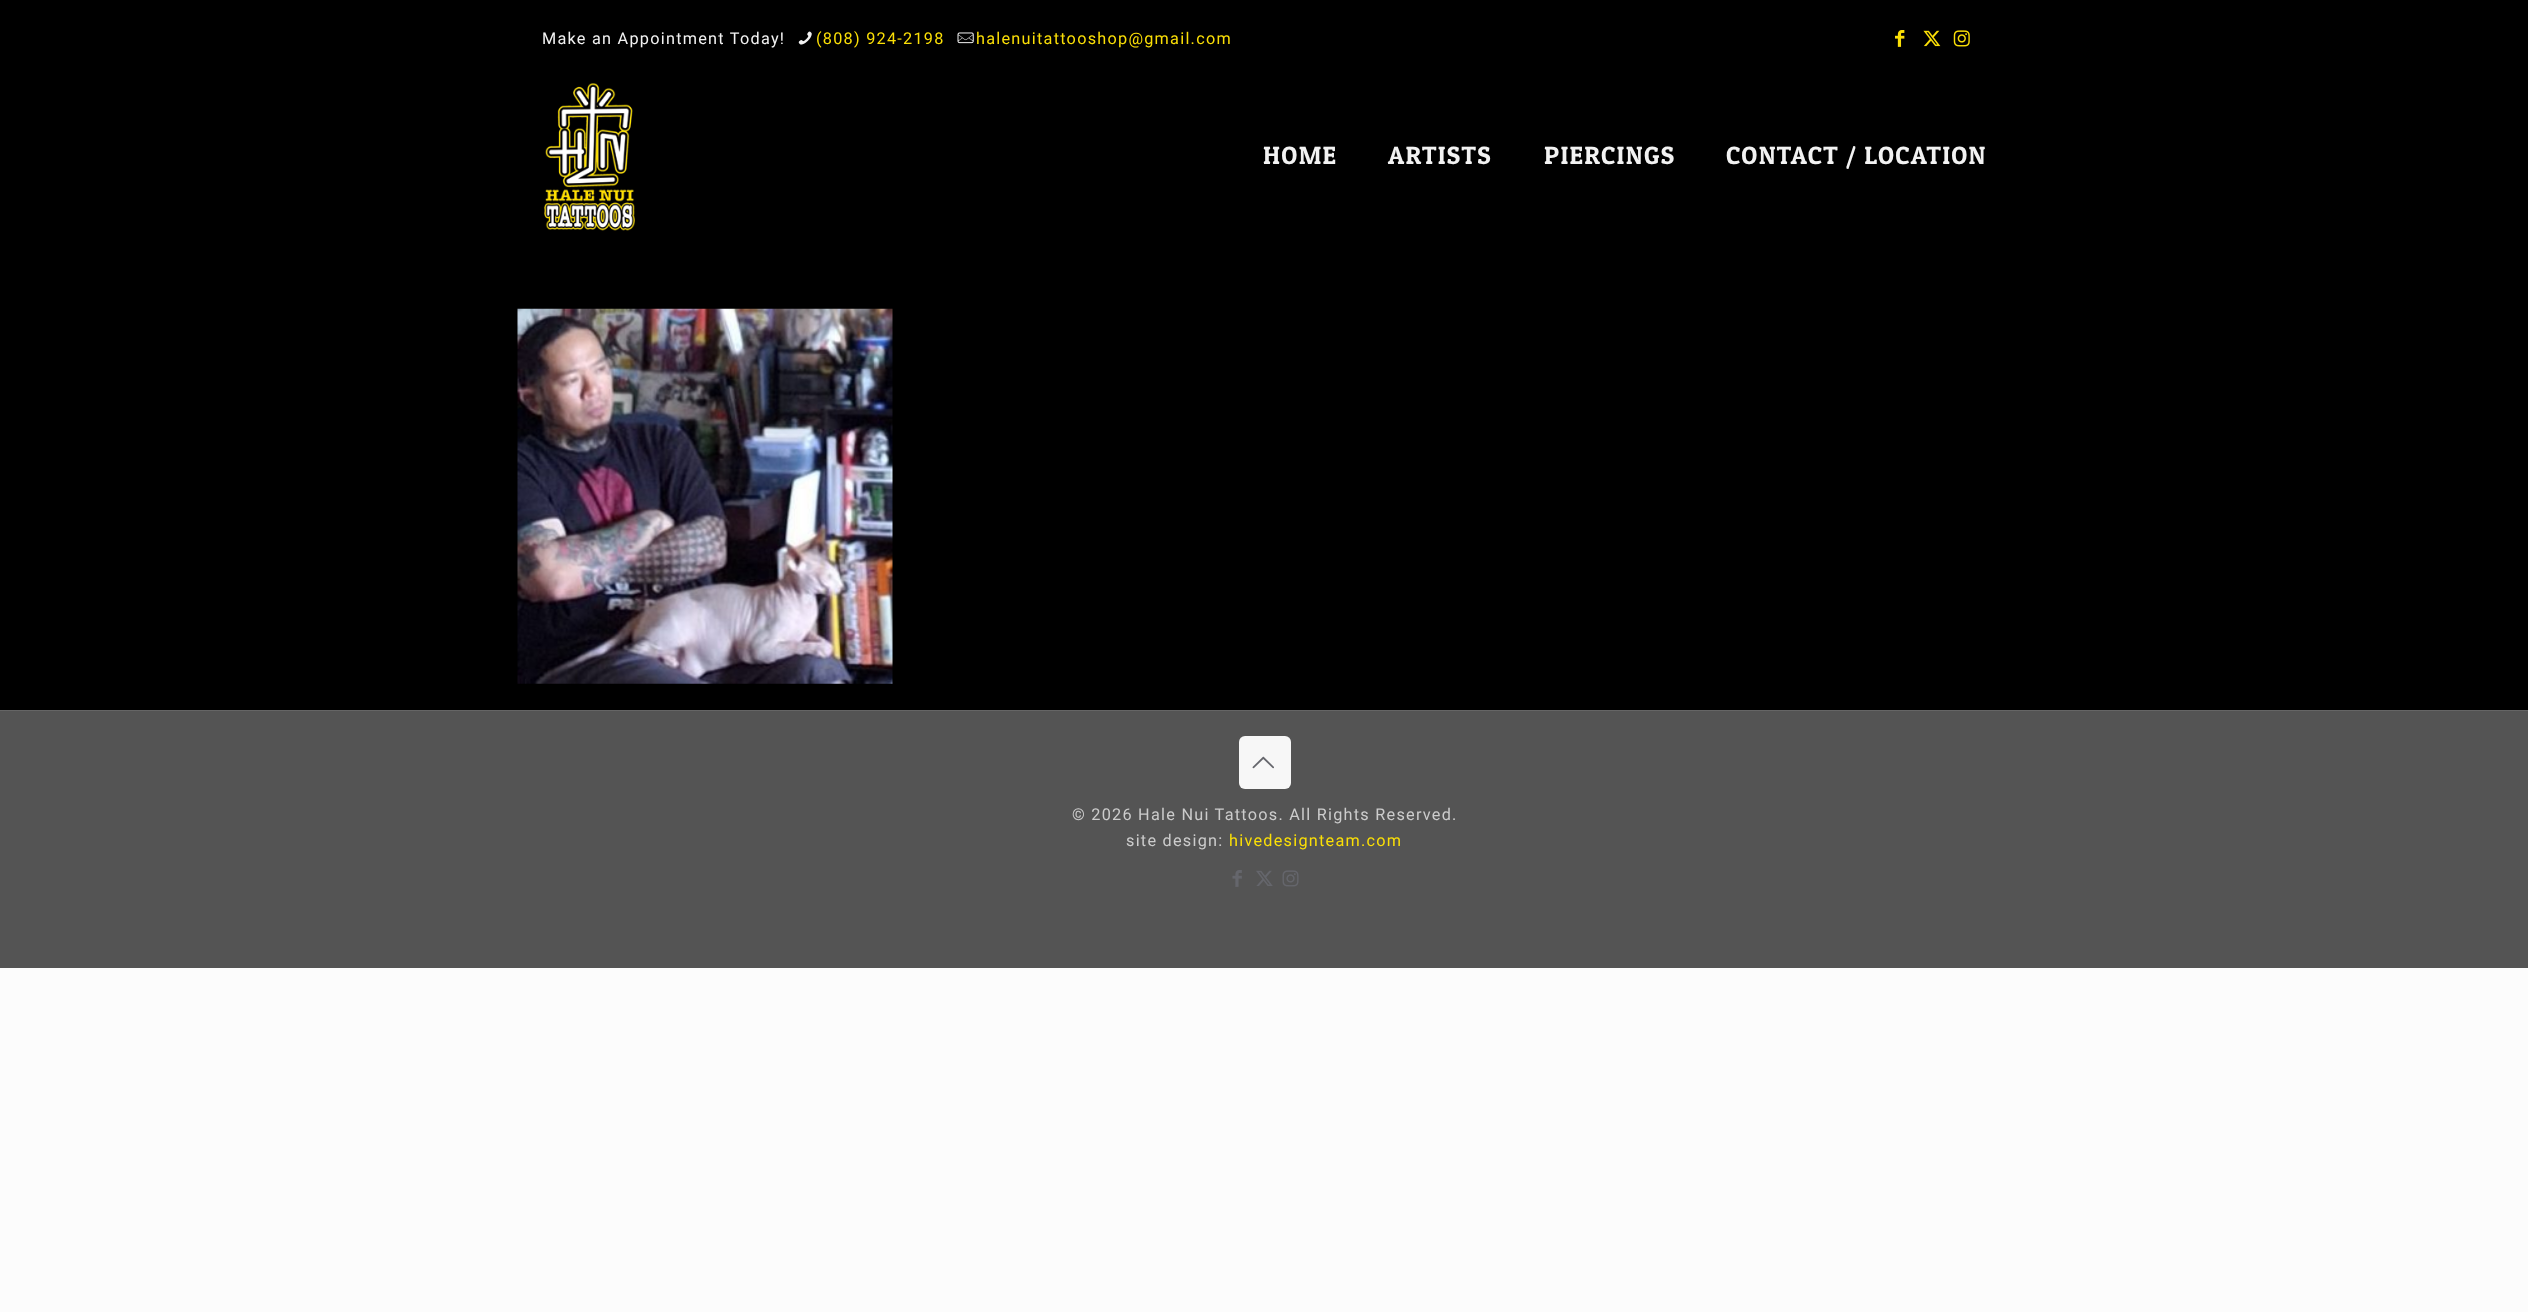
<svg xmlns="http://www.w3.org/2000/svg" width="2528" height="1312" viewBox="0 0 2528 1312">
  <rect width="100%" height="100%" fill="#fcfcfc"/>
  <path d="M0 0h2528v710H0z" fill="#000"/>
  <image x="798" y="31" width="14" height="14" href="img/1.png"/>
  <image x="957" y="32" width="17" height="12" href="img/2.png"/>
  <image x="1895" y="30" width="10" height="17" href="img/3.png"/>
  <image x="1923" y="30" width="18" height="17" href="img/4.png"/>
  <image x="1953" y="30" width="17" height="17" href="img/5.png"/>
  <image x="544" y="83" width="91" height="148" href="img/6.png"/>
  <image x="517" y="308" width="376" height="376" href="img/7.png"/>
  <path d="M0 711h2528v257H0z" fill="#545454"/>
  <path d="M0 710h2528v1H0z" fill="#656565"/>
  <rect x="1239" y="736" width="52" height="53" rx="6" fill="#f7f7f7"/>
  <image x="1252" y="756" width="22" height="13" href="img/8.png"/>
  <image x="1232" y="870" width="10" height="17" href="img/9.png"/>
  <image x="1256" y="870" width="17" height="16" href="img/10.png"/>
  <image x="1282" y="870" width="17" height="17" href="img/11.png"/>
  <text x="542" y="44" font-family="Roboto" font-size="16.25" letter-spacing="1.25" fill="#f2f2f2">Make an Appointment Today!</text>
  <g font-family="Roboto" font-size="16.25" letter-spacing="1.25" fill="#fbdf06">
    <text x="816" y="44">(808) 924-2198</text>
    <text x="976" y="44">halenuitattooshop@gmail.com</text>
  </g>
  <g font-family="Patua One" font-size="25" letter-spacing="1.25" fill="#f2f2f2">
    <text x="1263" y="164">HOME</text>
    <text x="1388" y="164">ARTISTS</text>
    <text x="1544" y="164">PIERCINGS</text>
    <text x="1726" y="164">CONTACT / LOCATION</text>
  </g>
  <g font-family="Roboto" font-size="16.25" letter-spacing="1.25" fill="#ccc">
    <text x="1072" y="820">© 2026 Hale Nui Tattoos. All Rights Reserved.</text>
    <text x="1126" y="846">site design:</text>
  </g>
  <text x="1229" y="846" font-family="Roboto" font-size="16.25" letter-spacing="1.25" fill="#fbdf06">hivedesignteam.com</text>
</svg>
